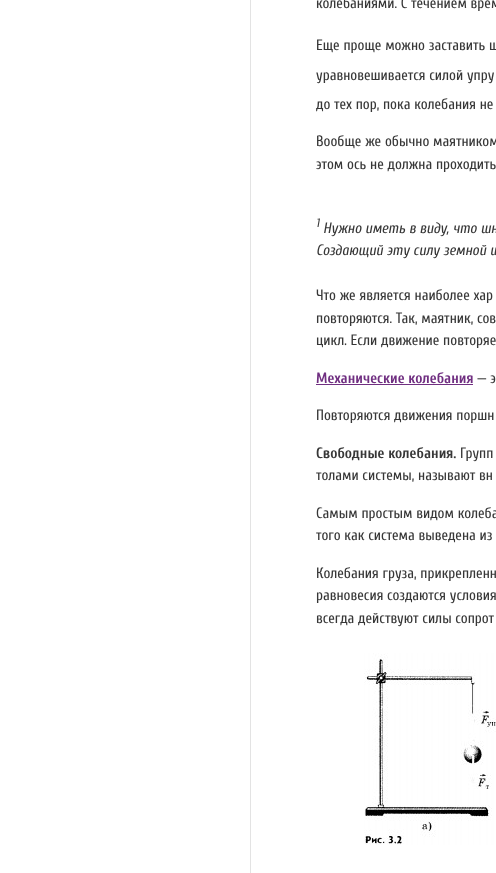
<svg xmlns="http://www.w3.org/2000/svg" width="496" height="873" viewBox="0 0 496 873">
  <rect width="100%" height="100%" fill="#fff"/>
  <path d="M250.5 -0.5h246v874H250.5z" fill="none" stroke="#e3e3e3"/>
  <path d="M316 384h157v1H316z" fill="#702f81"/>
  <image x="364" y="653" width="132" height="192" href="img/1.png"/>
  <g font-family="Cuprum" font-size="15" fill="#373737">
    <text x="316" y="8">колебаниями. С течением врем</text>
    <text x="316" y="50">Еще проще можно заставить ш</text>
    <text x="316" y="80">уравновешивается силой упру</text>
    <text x="316" y="109">до тех пор, пока колебания не</text>
    <text x="316" y="146">Вообще же обычно маятником</text>
    <text x="316" y="169">этом ось не должна проходить</text>
  </g>
  <text x="316" y="227" font-family="Cuprum" font-size="12" font-style="italic" fill="#373737">1</text>
  <g font-family="Cuprum" font-size="15" font-style="italic" fill="#373737">
    <text x="323" y="233">Нужно иметь в виду, что шн</text>
    <text x="316" y="255">Создающий эту силу земной ш</text>
  </g>
  <g font-family="Cuprum" font-size="15" fill="#373737">
    <text x="316" y="300">Что же является наиболее хар</text>
    <text x="316" y="323">повторяются. Так, маятник, сов</text>
    <text x="316" y="345">цикл. Если движение повторяе</text>
  </g>
  <text x="316" y="383" font-family="Cuprum" font-size="15" font-weight="bold" fill="#702f81">Механические колебания</text>
  <g font-family="Cuprum" font-size="15" fill="#373737">
    <text x="477" y="383">— э</text>
    <text x="316" y="420">Повторяются движения поршн</text>
  </g>
  <text x="316" y="458" font-family="Cuprum" font-size="15" font-weight="bold" fill="#373737">Свободные колебания.</text>
  <g font-family="Cuprum" font-size="15" fill="#373737">
    <text x="460" y="458">Групп</text>
    <text x="316" y="480">толами системы, называют вн</text>
    <text x="316" y="518">Самым простым видом колеба</text>
    <text x="316" y="540">того как система выведена из</text>
    <text x="316" y="578">Колебания груза, прикрепленн</text>
    <text x="316" y="600">равновесия создаются условия</text>
    <text x="316" y="623">всегда действуют силы сопрот</text>
  </g>
</svg>
